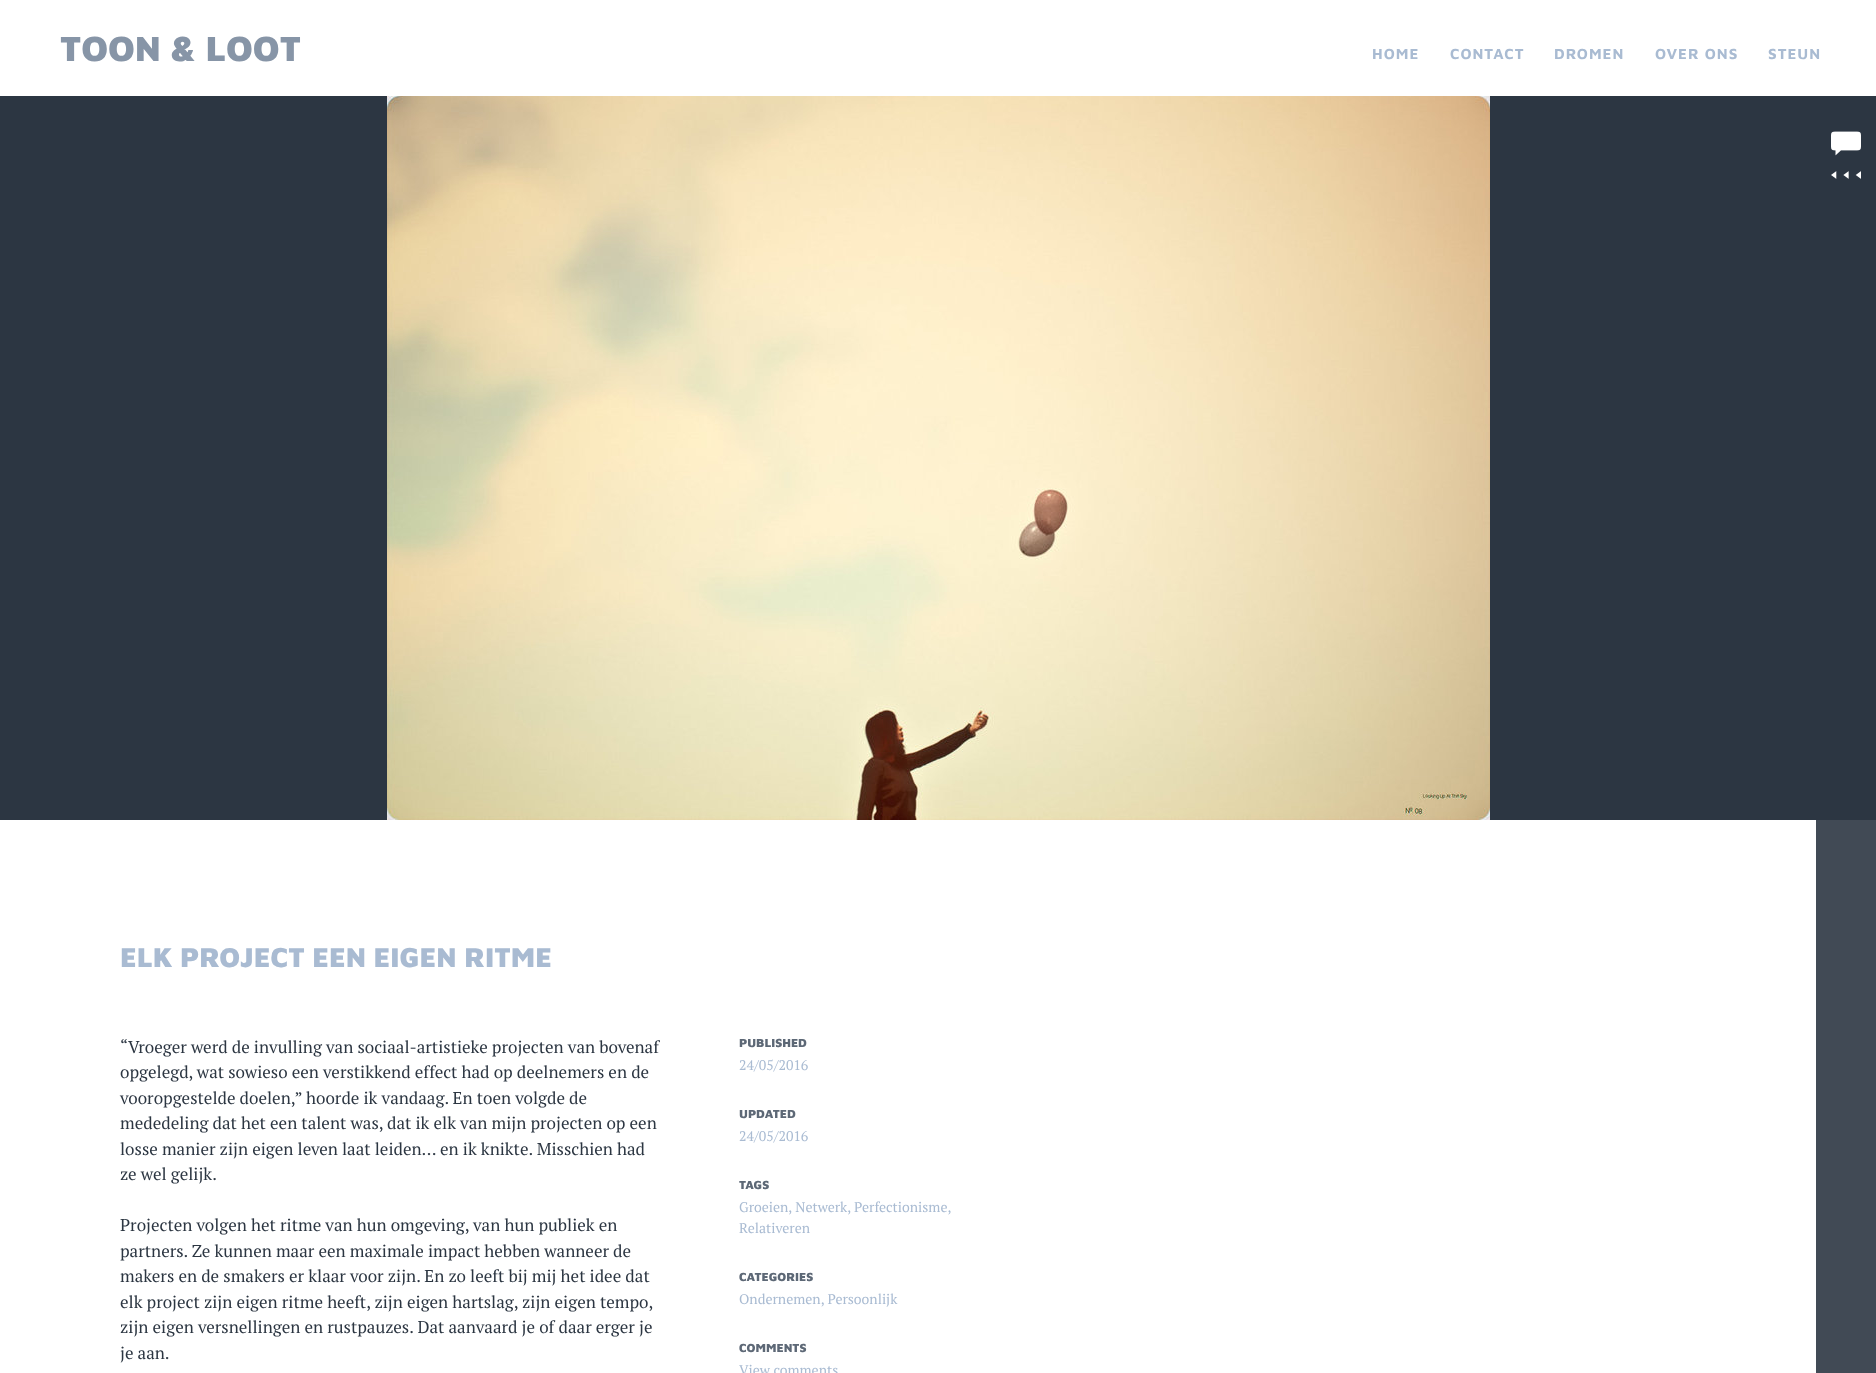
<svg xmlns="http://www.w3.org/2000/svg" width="1876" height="1373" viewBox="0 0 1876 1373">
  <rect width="100%" height="100%" fill="#fff"/>
  <path d="M1816 820h60v553H1816z" fill="#414a55"/>
  <path d="M0 96h1876v724H0z" fill="#2c3642"/>
  <image x="1831" y="131" width="30" height="25" href="img/1.png"/>
  <image x="1831" y="171" width="30" height="8" href="img/2.png"/>
  <image x="387" y="96" width="1103" height="724" href="img/3.png"/>
  <text x="60" y="61" font-family="Maven Pro" font-size="36" font-weight="900" fill="#8795a7">TOON &amp; LOOT</text>
  <g font-family="Maven Pro" font-size="15" font-weight="bold" letter-spacing="1" fill="#a9bbd2">
    <text x="1372" y="59">HOME</text>
    <text x="1450" y="59">CONTACT</text>
    <text x="1554" y="59">DROMEN</text>
    <text x="1655" y="59">OVER ONS</text>
    <text x="1768" y="59">STEUN</text>
  </g>
  <text x="120" y="967" font-family="Maven Pro" font-size="28" font-weight="900" fill="#a9bbd2">ELK PROJECT EEN EIGEN RITME</text>
  <g font-family="PT Serif" font-size="17" fill="#2c3642">
    <text x="120" y="1053">“Vroeger werd de invulling van sociaal-artistieke projecten van bovenaf</text>
    <text x="120" y="1078">opgelegd, wat sowieso een verstikkend effect had op deelnemers en de</text>
    <text x="120" y="1104">vooropgestelde doelen,” hoorde ik vandaag. En toen volgde de</text>
    <text x="120" y="1129">mededeling dat het een talent was, dat ik elk van mijn projecten op een</text>
    <text x="120" y="1155">losse manier zijn eigen leven laat leiden… en ik knikte. Misschien had</text>
    <text x="120" y="1180">ze wel gelijk.</text>
    <text x="120" y="1231">Projecten volgen het ritme van hun omgeving, van hun publiek en</text>
    <text x="120" y="1257">partners. Ze kunnen maar een maximale impact hebben wanneer de</text>
    <text x="120" y="1282">makers en de smakers er klaar voor zijn. En zo leeft bij mij het idee dat</text>
    <text x="120" y="1308">elk project zijn eigen ritme heeft, zijn eigen hartslag, zijn eigen tempo,</text>
    <text x="120" y="1333">zijn eigen versnellingen en rustpauzes. Dat aanvaard je of daar erger je</text>
    <text x="120" y="1359">je aan.</text>
  </g>
  <text x="739" y="1047" font-family="Maven Pro" font-size="12" font-weight="900" fill="#5d6876">PUBLISHED</text>
  <text x="739" y="1070" font-family="PT Serif" font-size="14" fill="#a9bbd2">24/05/2016</text>
  <text x="739" y="1118" font-family="Maven Pro" font-size="12" font-weight="900" fill="#5d6876">UPDATED</text>
  <text x="739" y="1141" font-family="PT Serif" font-size="14" fill="#a9bbd2">24/05/2016</text>
  <text x="739" y="1189" font-family="Maven Pro" font-size="12" font-weight="900" fill="#5d6876">TAGS</text>
  <g font-family="PT Serif" font-size="14" fill="#a9bbd2">
    <text x="739" y="1212">Groeien, Netwerk, Perfectionisme,</text>
    <text x="739" y="1233">Relativeren</text>
  </g>
  <text x="739" y="1281" font-family="Maven Pro" font-size="12" font-weight="900" fill="#5d6876">CATEGORIES</text>
  <text x="739" y="1304" font-family="PT Serif" font-size="14" fill="#a9bbd2">Ondernemen, Persoonlijk</text>
  <text x="739" y="1352" font-family="Maven Pro" font-size="12" font-weight="900" fill="#5d6876">COMMENTS</text>
  <text x="739" y="1375" font-family="PT Serif" font-size="14" fill="#a9bbd2">View comments</text>
</svg>
